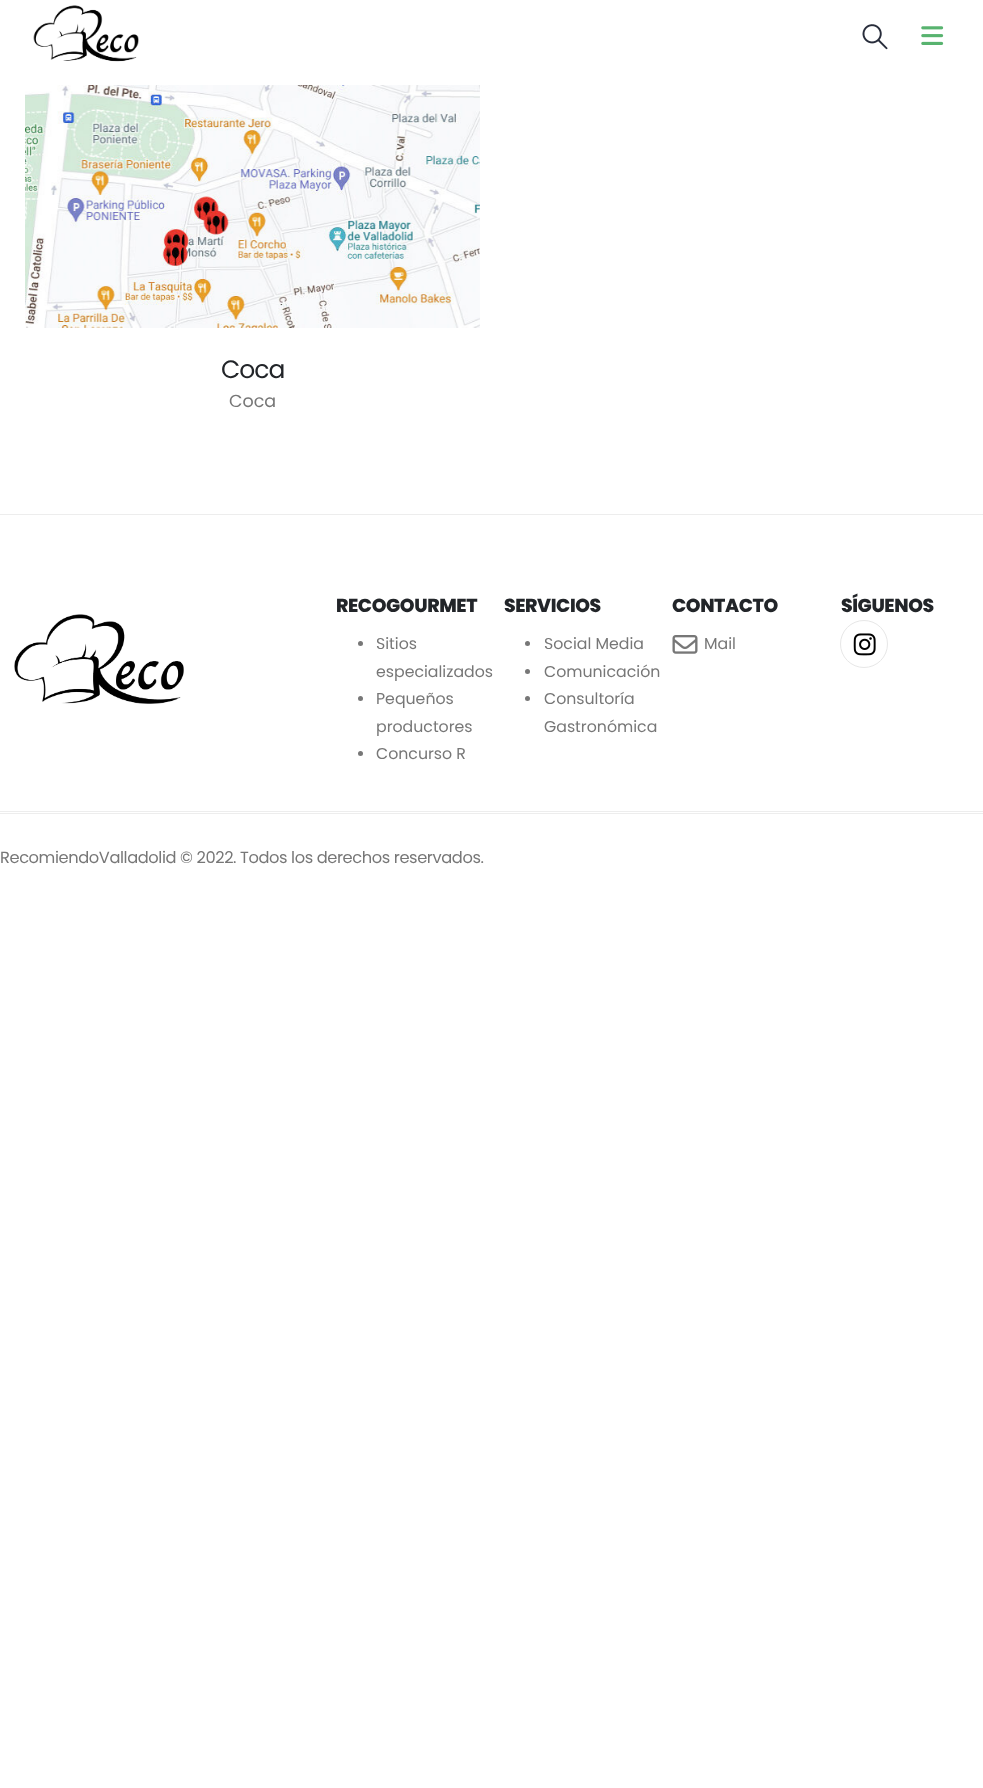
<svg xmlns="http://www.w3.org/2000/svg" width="983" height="1788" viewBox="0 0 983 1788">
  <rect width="100%" height="100%" fill="#fff"/>
  <image x="33" y="5" width="106" height="57" href="img/1.png"/>
  <image x="862" y="24" width="26" height="26" href="img/2.png"/>
  <image x="921" y="26" width="23" height="19" href="img/3.png"/>
  <image x="25" y="85" width="455" height="243" href="img/4.png"/>
  <path d="M0 514h983v1H0z" fill="#ededed"/>
  <image x="14" y="614" width="170" height="90" href="img/5.png"/>
  <circle cx="360.5" cy="643.5" r="2.5" fill="#777"/>
  <circle cx="360.5" cy="698.5" r="2.5" fill="#777"/>
  <circle cx="360.5" cy="753.5" r="2.5" fill="#777"/>
  <circle cx="527.5" cy="643.5" r="2.5" fill="#777"/>
  <circle cx="527.5" cy="671.5" r="2.5" fill="#777"/>
  <circle cx="527.5" cy="698.5" r="2.5" fill="#777"/>
  <image x="672" y="635" width="26" height="19" href="img/6.png"/>
  <circle cx="864" cy="644" r="23.5" fill="none" stroke="#e7e7e7"/>
  <image x="853" y="633" width="23" height="23" href="img/7.png"/>
  <path d="M0 811h983v1H0z" fill="#ededed"/>
  <path d="M0 813h983v1H0z" fill="#ededed"/>
  <text x="221" y="378" font-family="Poppins" font-size="25" letter-spacing="-1" fill="#222529">Coca</text>
  <text x="229" y="407" font-family="Poppins" font-size="17.5" fill="#777">Coca</text>
  <text x="336" y="612" font-family="Poppins" font-size="18.75" font-weight="800" letter-spacing="-0.4" fill="#222529">RECOGOURMET</text>
  <g font-family="Poppins" font-size="15.75" fill="#777">
    <text x="376" y="649">Sitios</text>
    <text x="376" y="677">especializados</text>
    <text x="376" y="704">Pequeños</text>
    <text x="376" y="732">productores</text>
    <text x="376" y="759">Concurso R</text>
  </g>
  <text x="504" y="612" font-family="Poppins" font-size="18.75" font-weight="800" letter-spacing="-0.4" fill="#222529">SERVICIOS</text>
  <g font-family="Poppins" font-size="15.75" fill="#777">
    <text x="544" y="649">Social Media</text>
    <text x="544" y="677">Comunicación</text>
    <text x="544" y="704">Consultoría</text>
    <text x="544" y="732">Gastronómica</text>
  </g>
  <text x="672" y="612" font-family="Poppins" font-size="18.75" font-weight="800" letter-spacing="-0.4" fill="#222529">CONTACTO</text>
  <text x="704" y="649" font-family="Poppins" font-size="15.75" fill="#777">Mail</text>
  <text x="841" y="612" font-family="Poppins" font-size="18.75" font-weight="800" letter-spacing="-0.4" fill="#222529">SÍGUENOS</text>
  <text x="0" y="863" font-family="Poppins" font-size="16.25" letter-spacing="-0.4" fill="#777">RecomiendoValladolid © 2022. Todos los derechos reservados.</text>
</svg>
